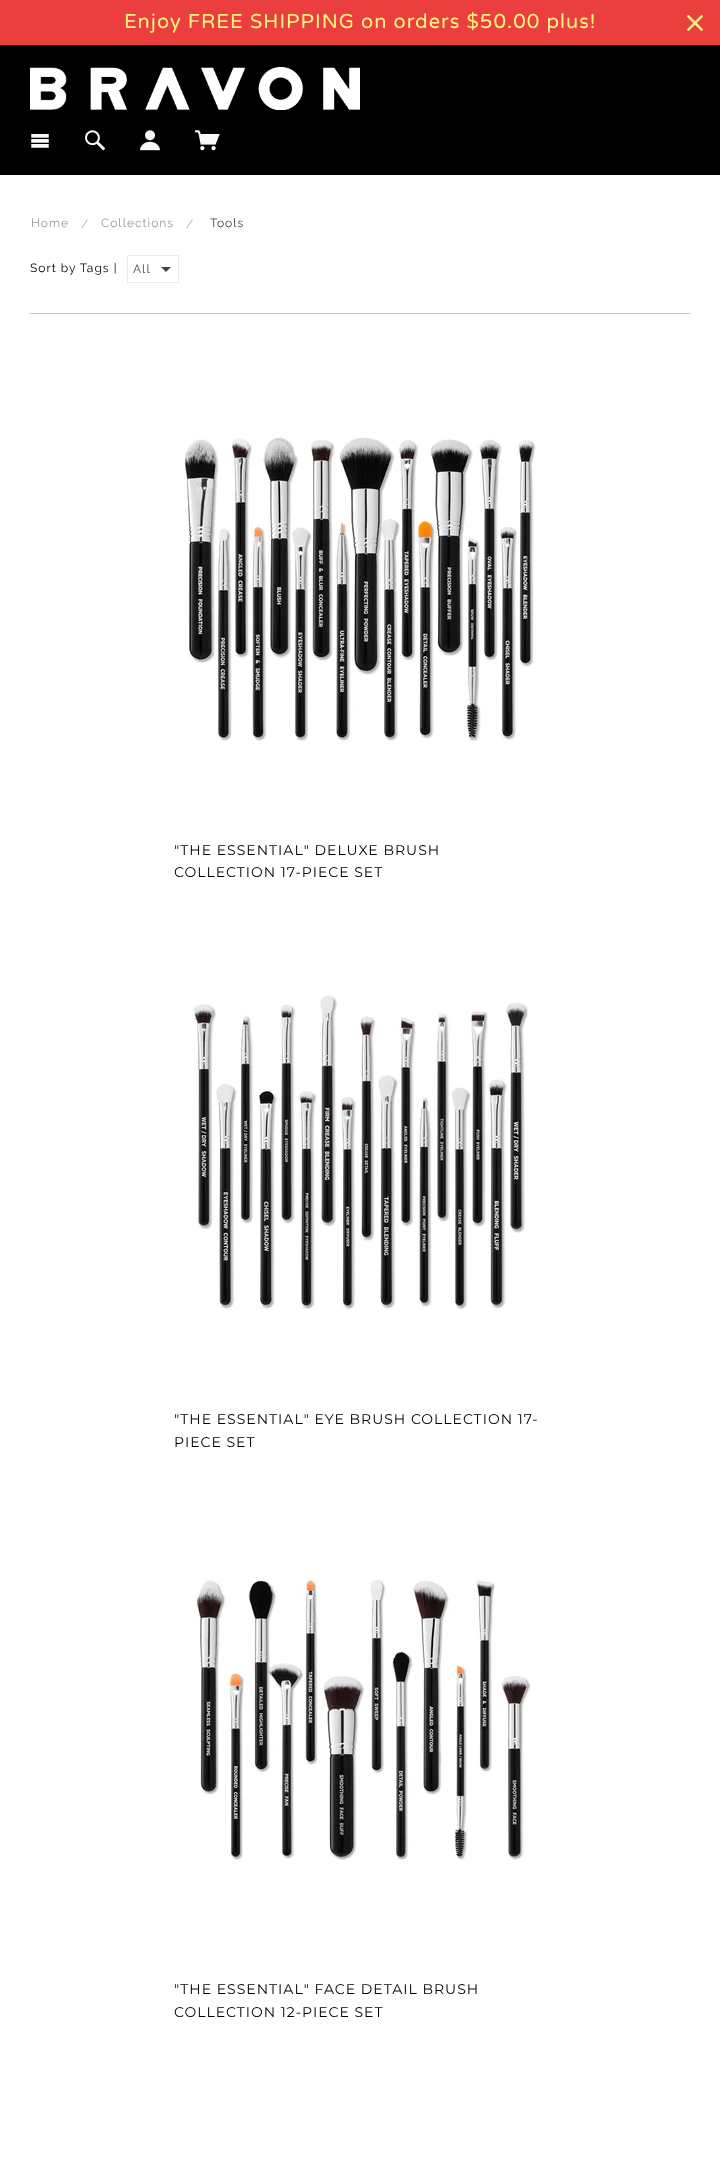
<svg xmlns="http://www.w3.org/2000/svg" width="720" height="2158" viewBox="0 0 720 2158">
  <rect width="100%" height="100%" fill="#fff"/>
  <path d="M0 0h720v45H0z" fill="#eb3e3e"/>
  <image x="687" y="15" width="16" height="16" href="img/1.png"/>
  <path d="M0 45h720v130H0z" fill="#000"/>
  <image x="30" y="67" width="330" height="43" href="img/2.png"/>
  <image x="31" y="134" width="18" height="14" href="img/3.png"/>
  <image x="85" y="130" width="20" height="21" href="img/4.png"/>
  <image x="140" y="130" width="20" height="21" href="img/5.png"/>
  <image x="195" y="130" width="25" height="21" href="img/6.png"/>
  <path d="M127.5 255.5h51v27H127.5z" fill="none" stroke="#ebebeb"/>
  <path d="M161 267H171L166 272Z" fill="#444"/>
  <path d="M30 313h660v1H30z" fill="#c3c5c8"/>
  <image x="184" y="436" width="352" height="306" href="img/7.png"/>
  <image x="192" y="995" width="337" height="315" href="img/8.png"/>
  <image x="196" y="1579" width="335" height="282" href="img/9.png"/>
  <text x="124" y="28" font-family="Varela Round" font-size="20" letter-spacing="1" fill="#fff681">Enjoy FREE SHIPPING on orders $50.00 plus!</text>
  <text x="31" y="227" font-family="Raleway" font-size="12" letter-spacing="1" fill="#999">Home</text>
  <text x="81" y="228" font-family="Raleway" font-size="12" letter-spacing="1" fill="#aaa">/</text>
  <text x="101" y="227" font-family="Raleway" font-size="12" letter-spacing="1" fill="#999">Collections</text>
  <text x="186" y="228" font-family="Raleway" font-size="12" letter-spacing="1" fill="#aaa">/</text>
  <text x="210" y="227" font-family="Raleway" font-size="12" letter-spacing="1" fill="#444">Tools</text>
  <text x="30" y="272" font-family="Raleway" font-size="12" letter-spacing="1" fill="#000">Sort by Tags |</text>
  <text x="133" y="273" font-family="Raleway" font-size="12" letter-spacing="1" fill="#444">All</text>
  <g font-family="Montserrat" font-size="14" letter-spacing="1" fill="#000">
    <text x="174" y="855">"THE ESSENTIAL" DELUXE BRUSH</text>
    <text x="174" y="877">COLLECTION 17-PIECE SET</text>
    <text x="174" y="1424">"THE ESSENTIAL" EYE BRUSH COLLECTION 17-</text>
    <text x="174" y="1447">PIECE SET</text>
    <text x="174" y="1994">"THE ESSENTIAL" FACE DETAIL BRUSH</text>
    <text x="174" y="2017">COLLECTION 12-PIECE SET</text>
  </g>
</svg>
